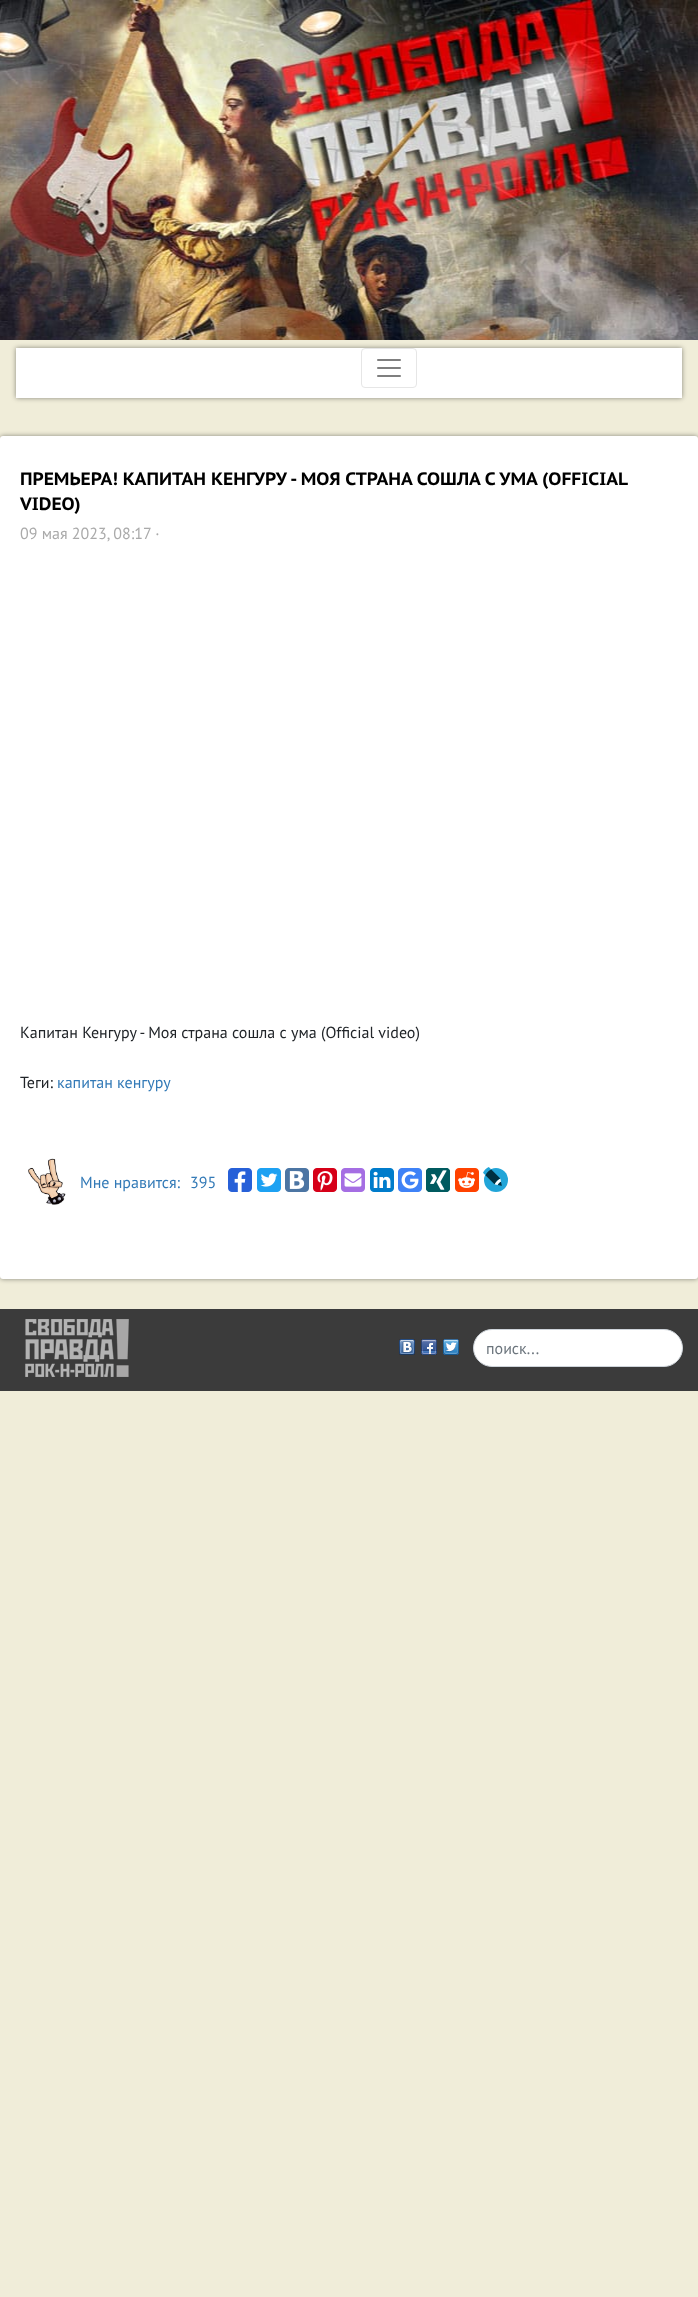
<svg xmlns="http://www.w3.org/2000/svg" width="698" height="2297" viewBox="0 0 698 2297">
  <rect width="100%" height="100%" fill="#f0edd9"/>
  <image x="0" y="0" width="698" height="340" href="img/1.png"/>
  <path d="M16 348h666v50H16z" fill="#00000070" filter="blur(2.5px)"/>
  <path d="M16 348h666v50H16z" fill="#fff"/>
  <rect x="361.5" y="348.5" width="55" height="39" rx="3.5" fill="none" stroke="#e6e6e6"/>
  <image x="377" y="359" width="24" height="18" href="img/2.png"/>
  <rect y="436" width="698" height="843" rx="3" fill="#00000070" filter="blur(2.5px)"/>
  <rect y="436" width="698" height="843" rx="3" fill="#fff"/>
  <image x="28" y="1158" width="38" height="47" href="img/3.png"/>
  <image x="228" y="1168" width="24" height="24" href="img/4.png"/>
  <image x="257" y="1168" width="24" height="24" href="img/5.png"/>
  <image x="285" y="1168" width="24" height="24" href="img/6.png"/>
  <image x="313" y="1168" width="24" height="24" href="img/7.png"/>
  <image x="341" y="1168" width="24" height="24" href="img/8.png"/>
  <image x="370" y="1168" width="24" height="24" href="img/9.png"/>
  <image x="398" y="1168" width="24" height="24" href="img/10.png"/>
  <image x="426" y="1168" width="24" height="24" href="img/11.png"/>
  <image x="455" y="1168" width="24" height="24" href="img/12.png"/>
  <circle cx="496" cy="1180" r="12" fill="#21a5d8"/>
  <image x="483" y="1167" width="19" height="19" href="img/13.png"/>
  <path d="M0 1309h698v82H0z" fill="#3b3b3b"/>
  <image x="25" y="1319" width="104" height="58" href="img/14.png"/>
  <image x="399" y="1339" width="16" height="16" href="img/15.png"/>
  <image x="421" y="1339" width="16" height="16" href="img/16.png"/>
  <image x="443" y="1339" width="16" height="16" href="img/17.png"/>
  <rect x="473.5" y="1329.5" width="209" height="37" rx="18.5" fill="#fff" stroke="#ced4da"/>
  <g font-family="PT Sans Caption" font-size="18" font-weight="bold" fill="#000">
    <text x="20" y="485">ПРЕМЬЕРА! КАПИТАН КЕНГУРУ - МОЯ СТРАНА СОШЛА С УМА (OFFICIAL</text>
    <text x="20" y="510">VIDEO)</text>
  </g>
  <text x="20" y="539" font-family="PT Sans" font-size="16" fill="#aaa">09 мая 2023, 08:17 ·</text>
  <g font-family="PT Sans" font-size="16" fill="#212529">
    <text x="20" y="1038">Капитан Кенгуру - Моя страна сошла с ума (Official video)</text>
    <text x="20" y="1088">Теги:</text>
  </g>
  <g font-family="PT Sans" font-size="16" fill="#337ab7">
    <text x="57" y="1088">капитан кенгуру</text>
    <text x="80" y="1188">Мне нравится:</text>
    <text x="190" y="1188">395</text>
  </g>
  <text x="486" y="1354" font-family="PT Sans" font-size="16" fill="#6c757d">поиск...</text>
</svg>
